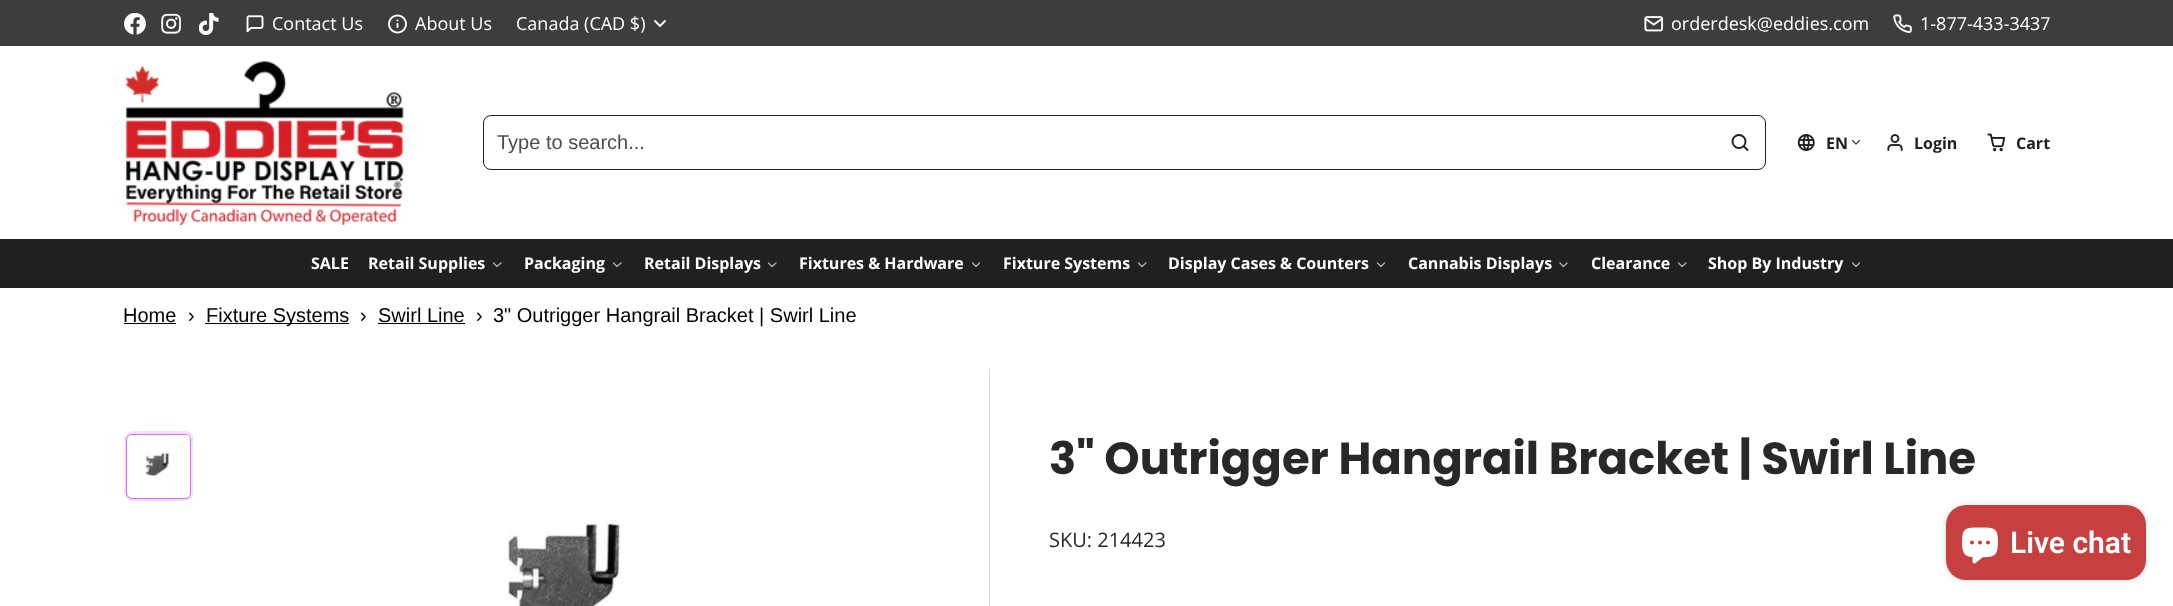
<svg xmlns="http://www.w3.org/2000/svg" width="2173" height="606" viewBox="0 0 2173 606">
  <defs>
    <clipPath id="clip1"><path d="M124 431h69v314H124z"/></clipPath>
  </defs>
  <rect width="100%" height="100%" fill="#fff"/>
  <path d="M0 0h2173v46H0z" fill="#3d3d3d"/>
  <image x="124" y="13" width="22" height="22" href="img/1.png"/>
  <image x="161" y="13" width="20" height="21" href="img/2.png"/>
  <image x="199" y="13" width="20" height="22" href="img/3.png"/>
  <image x="246" y="15" width="18" height="18" href="img/4.png"/>
  <image x="388" y="14" width="19" height="20" href="img/5.png"/>
  <path d="M655 21L660 26L665 21" fill="none" stroke="#fff" stroke-width="1.9" stroke-linecap="round" stroke-linejoin="round"/>
  <image x="1644" y="16" width="20" height="16" href="img/6.png"/>
  <image x="1893" y="14" width="19" height="19" href="img/7.png"/>
  <image x="125" y="61" width="279" height="164" href="img/8.png"/>
  <rect x="483.5" y="115.5" width="1282" height="54" rx="7.5" fill="none" stroke="#202020"/>
  <circle cx="1739" cy="141.5" r="6.5" fill="none" stroke="#202020" stroke-width="1.9"/>
  <path d="M1747.5 150L1744 146.5" fill="none" stroke="#202020" stroke-width="1.9" stroke-linecap="round" stroke-linejoin="round"/>
  <image x="1797" y="134" width="18" height="17" href="img/9.png"/>
  <path d="M1852.5 140.5L1856 144L1859.5 140.5" fill="none" stroke="#4d4d4d" stroke-width="1.4" stroke-linecap="round" stroke-linejoin="round"/>
  <image x="1887" y="134" width="16" height="17" href="img/10.png"/>
  <image x="1987" y="133" width="19" height="19" href="img/11.png"/>
  <path d="M0 239h2173v49H0z" fill="#202020"/>
  <path d="M493.5 263L497 266.5L501 263" fill="none" stroke="#afafaf" stroke-width="1.4" stroke-linecap="round" stroke-linejoin="round"/>
  <path d="M613.5 263L617 266.5L621 263" fill="none" stroke="#afafaf" stroke-width="1.4" stroke-linecap="round" stroke-linejoin="round"/>
  <path d="M768.5 263L772 266.5L776 263" fill="none" stroke="#afafaf" stroke-width="1.4" stroke-linecap="round" stroke-linejoin="round"/>
  <path d="M972.5 263L976 266.5L979.5 263" fill="none" stroke="#afafaf" stroke-width="1.4" stroke-linecap="round" stroke-linejoin="round"/>
  <path d="M1138.5 263L1142 266.5L1146 263" fill="none" stroke="#afafaf" stroke-width="1.4" stroke-linecap="round" stroke-linejoin="round"/>
  <path d="M1377.5 263L1381 266.5L1384.5 263" fill="none" stroke="#afafaf" stroke-width="1.4" stroke-linecap="round" stroke-linejoin="round"/>
  <path d="M1560 263L1563.5 266.5L1567 263" fill="none" stroke="#afafaf" stroke-width="1.4" stroke-linecap="round" stroke-linejoin="round"/>
  <path d="M1678.5 263L1682 266.5L1686 263" fill="none" stroke="#afafaf" stroke-width="1.4" stroke-linecap="round" stroke-linejoin="round"/>
  <path d="M1852.5 263L1856 266.5L1859.5 263" fill="none" stroke="#afafaf" stroke-width="1.4" stroke-linecap="round" stroke-linejoin="round"/>
  <path d="M124 323h52v1H124z" fill="#000"/>
  <path d="M205 323h144v1H205z" fill="#000"/>
  <path d="M378 323h87v1H378z" fill="#000"/>
  <path d="M989 369h1v237H989z" fill="#d9d9d9"/>
  <g clip-path="url(#clip1)">
    <rect x="125.5" y="432.5" width="67" height="67" rx="7.5" fill="none" stroke="#f6e1fc" stroke-width="3"/>
  </g>
  <rect x="126.5" y="434.5" width="64" height="64" rx="5.5" fill="none" stroke="#d36bf1"/>
  <image x="127" y="435" width="63" height="62" href="img/12.png"/>
  <image x="508" y="519" width="113" height="87" href="img/13.png"/>
  <rect x="1946" y="505" width="200" height="75" rx="20" fill="#00000026" filter="blur(3px)"/>
  <rect x="1946" y="505" width="200" height="75" rx="20" fill="#c74040"/>
  <image x="1962" y="527" width="36" height="37" href="img/14.png"/>
  <g font-family="Open Sans" font-size="18" fill="#fff">
    <text x="272" y="30">Contact Us</text>
    <text x="415" y="30">About Us</text>
    <text x="516" y="30">Canada (CAD $)</text>
    <text x="1671" y="30">orderdesk@eddies.com</text>
    <text x="1920" y="30">1-877-433-3437</text>
  </g>
  <text x="497" y="149" font-family="Liberation Sans" font-size="20" fill="#4d4d4d">Type to search...</text>
  <g font-family="Open Sans" font-size="16" font-weight="bold" fill="#202020">
    <text x="1826" y="149">EN</text>
    <text x="1914" y="149">Login</text>
    <text x="2016" y="149">Cart</text>
  </g>
  <g font-family="Open Sans" font-size="16" font-weight="bold" fill="#fff">
    <text x="311" y="269">SALE</text>
    <text x="368" y="269">Retail Supplies</text>
    <text x="524" y="269">Packaging</text>
    <text x="644" y="269">Retail Displays</text>
    <text x="799" y="269">Fixtures &amp; Hardware</text>
    <text x="1003" y="269">Fixture Systems</text>
    <text x="1168" y="269">Display Cases &amp; Counters</text>
    <text x="1408" y="269">Cannabis Displays</text>
    <text x="1591" y="269">Clearance</text>
    <text x="1708" y="269">Shop By Industry</text>
  </g>
  <g font-family="Liberation Sans" font-size="20" fill="#000">
    <text x="123" y="322">Home</text>
    <text x="188" y="322">›</text>
    <text x="206" y="322">Fixture Systems</text>
    <text x="360" y="322">›</text>
    <text x="378" y="322">Swirl Line</text>
    <text x="476" y="322">›</text>
    <text x="493" y="322">3" Outrigger Hangrail Bracket | Swirl Line</text>
  </g>
  <text x="1049" y="474" font-family="Poppins" font-size="45" font-weight="bold" fill="#282828">3" Outrigger Hangrail Bracket | Swirl Line</text>
  <text x="1049" y="547" font-family="Open Sans" font-size="20" fill="#282828">SKU: 214423</text>
  <text x="2010" y="553" font-family="Roboto" font-size="30" font-weight="600" fill="#fff">Live chat</text>
</svg>
